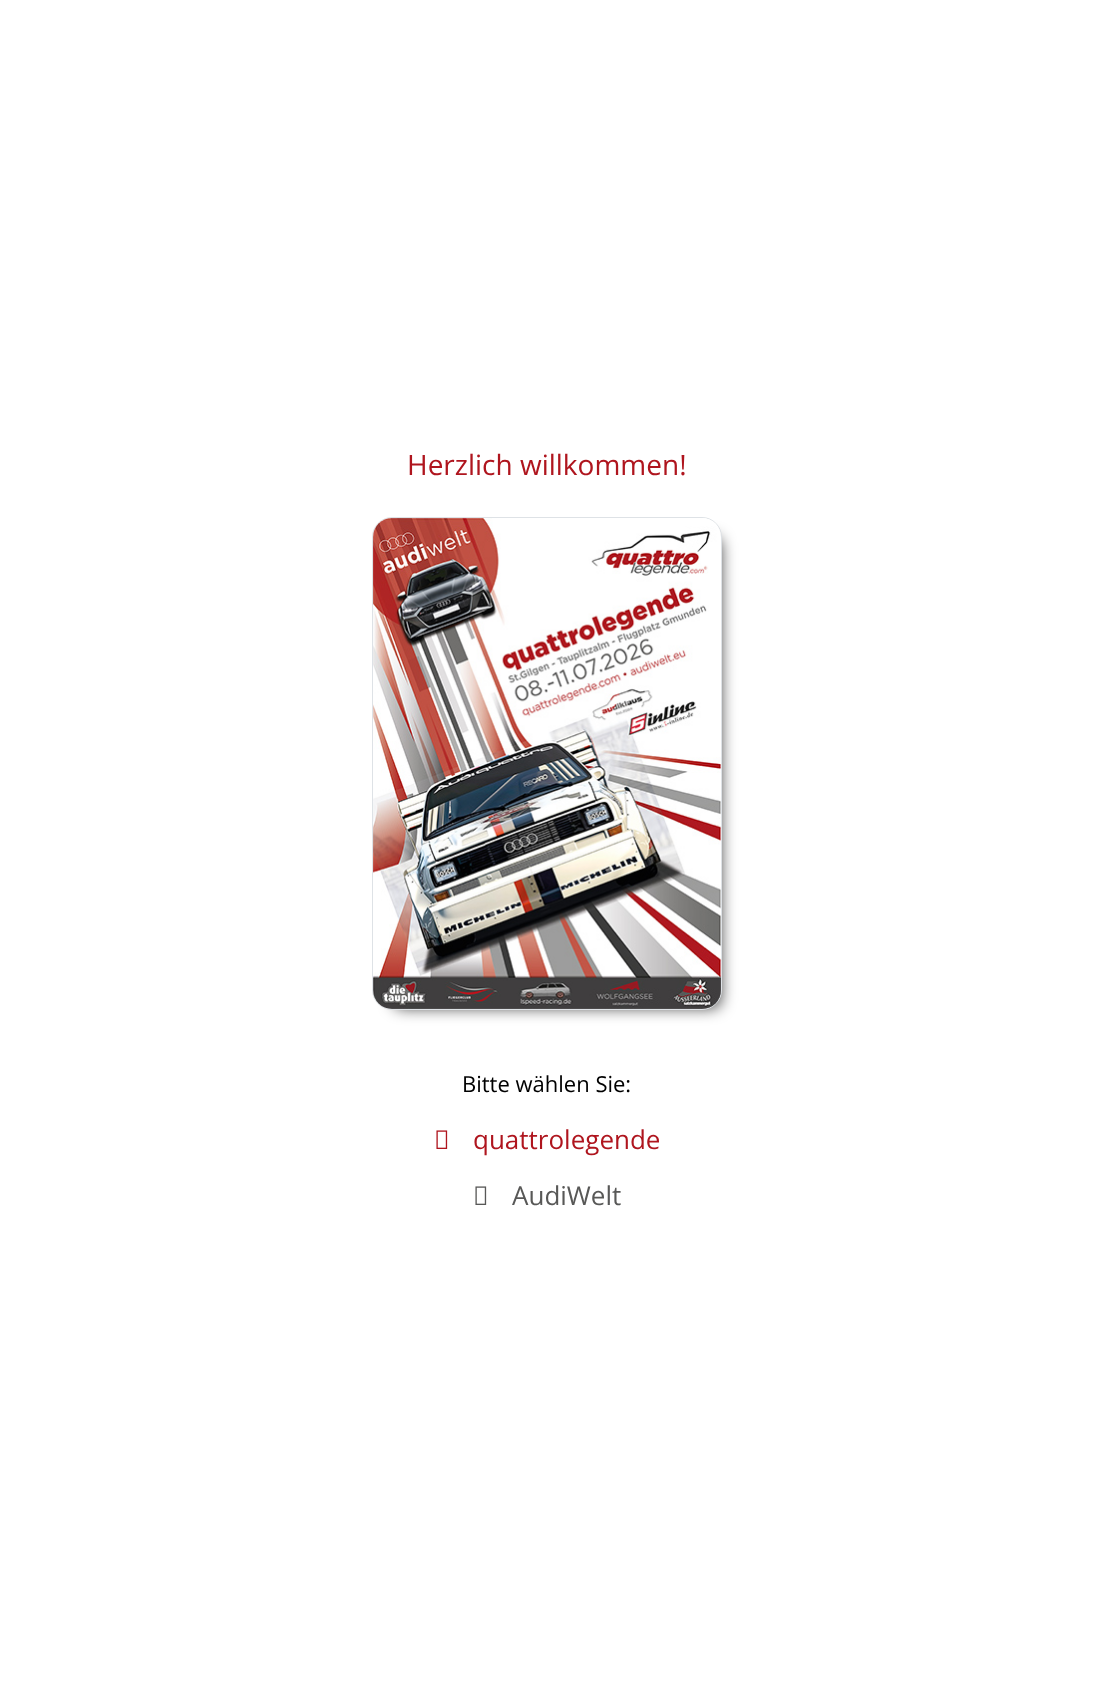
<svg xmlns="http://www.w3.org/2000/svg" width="1094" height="1689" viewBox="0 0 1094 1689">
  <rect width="100%" height="100%" fill="#fff"/>
  <rect x="393" y="537" width="328" height="471" rx="9" fill="#000000bf" filter="blur(7.5px)"/>
  <rect x="372.5" y="517.5" width="349" height="492" rx="19.5" fill="none" stroke="#dee2e6"/>
  <image x="373" y="518" width="348" height="491" href="img/1.png"/>
  <image x="436" y="1130" width="12" height="19" href="img/2.png"/>
  <image x="475" y="1186" width="12" height="19" href="img/3.png"/>
  <text x="407" y="475" font-family="Open Sans" font-size="28" fill="#af151e">Herzlich willkommen!</text>
  <text x="462" y="1092" font-family="Open Sans" font-size="22" fill="#000">Bitte wählen Sie:</text>
  <text x="473" y="1149" font-family="Open Sans" font-size="26" fill="#af151e">quattrolegende</text>
  <text x="512" y="1205" font-family="Open Sans" font-size="26" fill="#585857">AudiWelt</text>
</svg>
